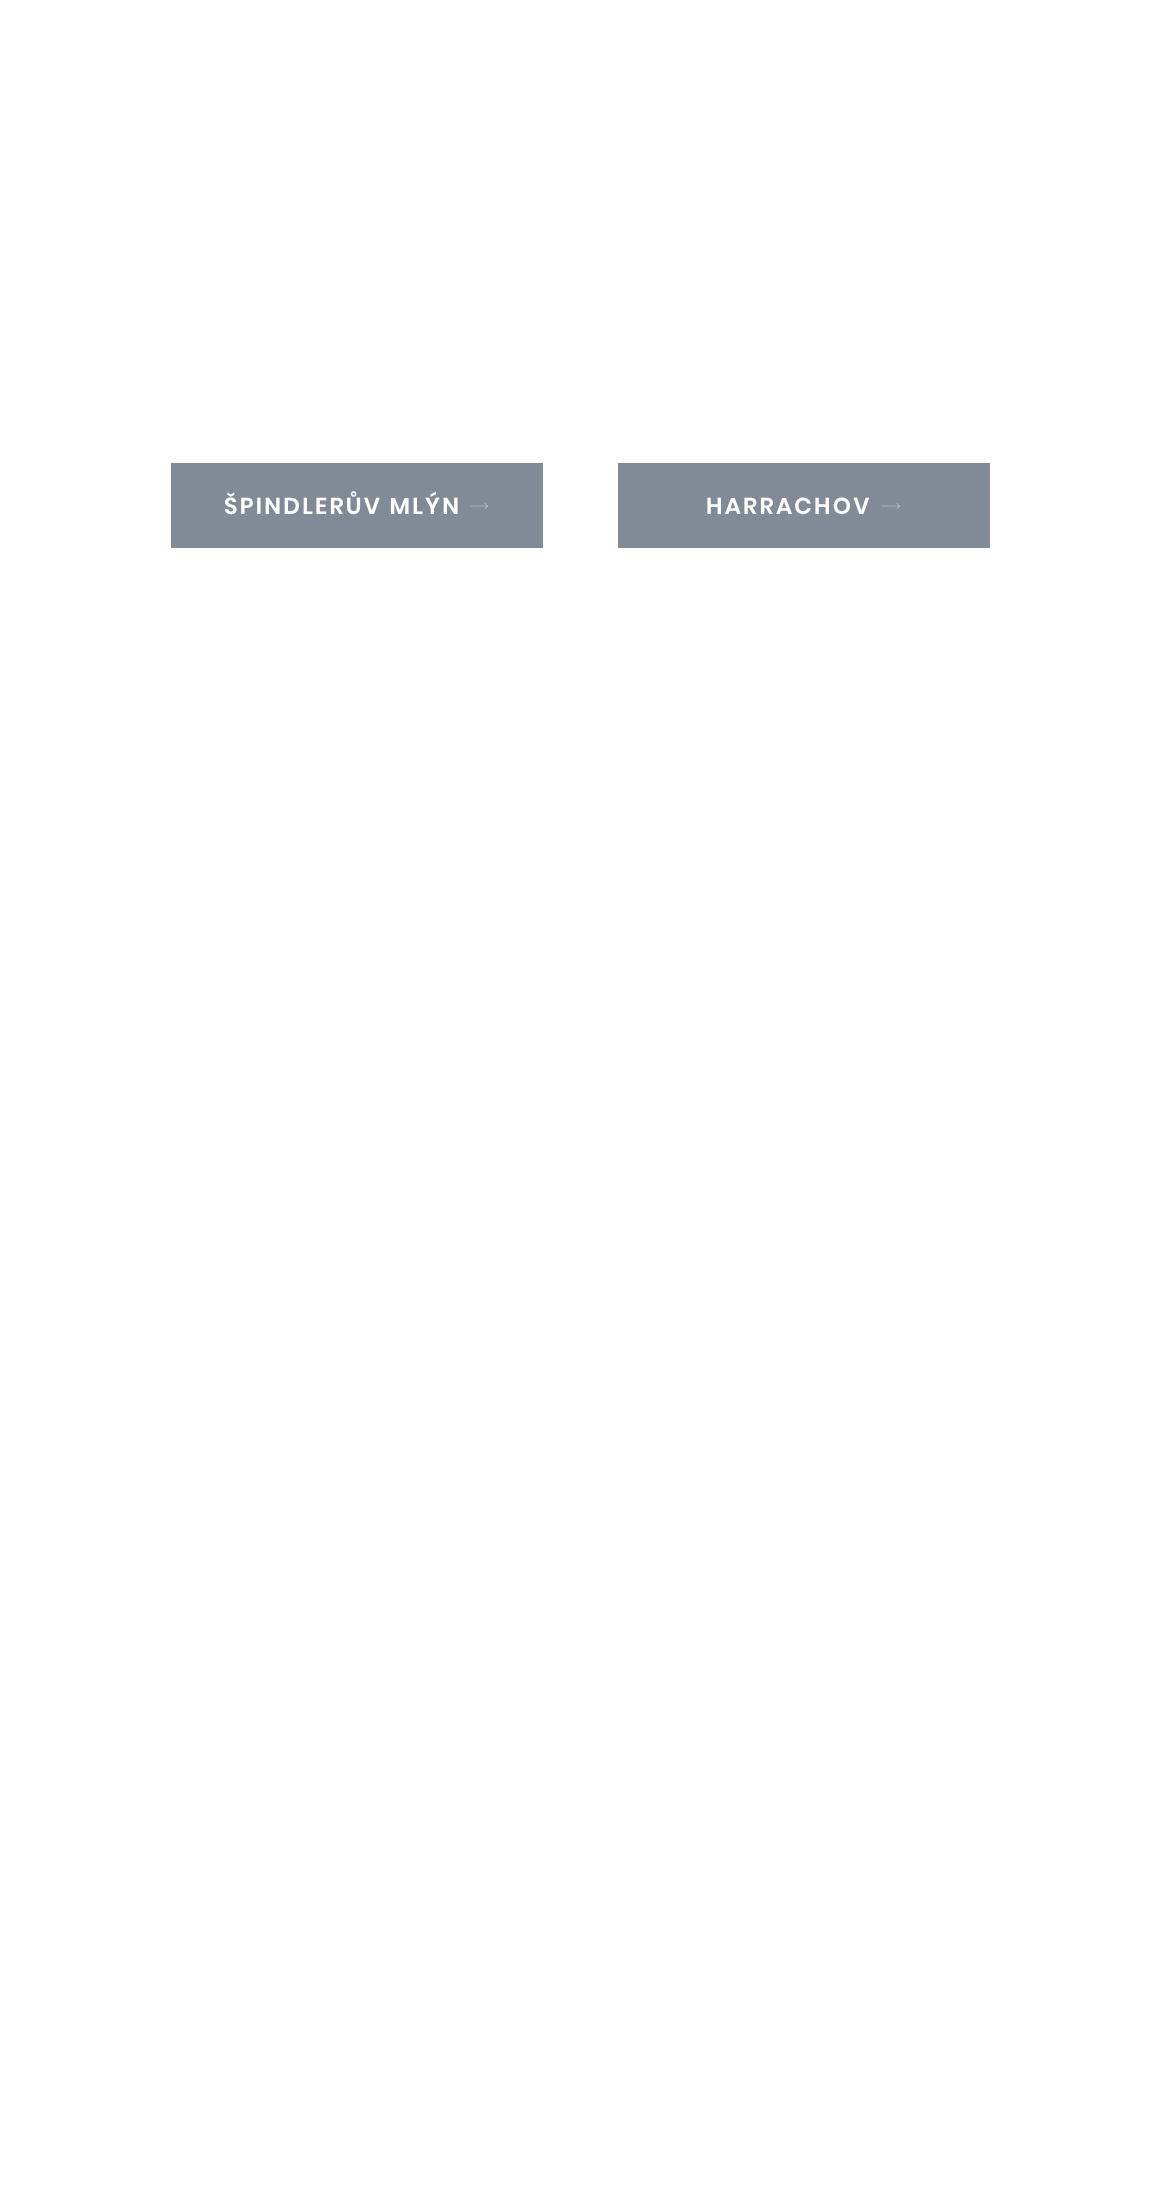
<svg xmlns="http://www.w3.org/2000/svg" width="1161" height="2195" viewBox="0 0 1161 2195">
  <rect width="100%" height="100%" fill="#fff"/>
  <path d="M171 463h372v85H171z" fill="#808b97"/>
  <image x="470" y="503" width="18" height="6" href="img/1.png"/>
  <path d="M618 463h372v85H618z" fill="#808b97"/>
  <image x="882" y="503" width="18" height="6" href="img/1.png"/>
  <g font-family="Poppins" font-size="23" font-weight="600" letter-spacing="2.25" fill="#fff">
    <text x="224" y="514">ŠPINDLERŮV MLÝN</text>
    <text x="706" y="514">HARRACHOV</text>
  </g>
</svg>
